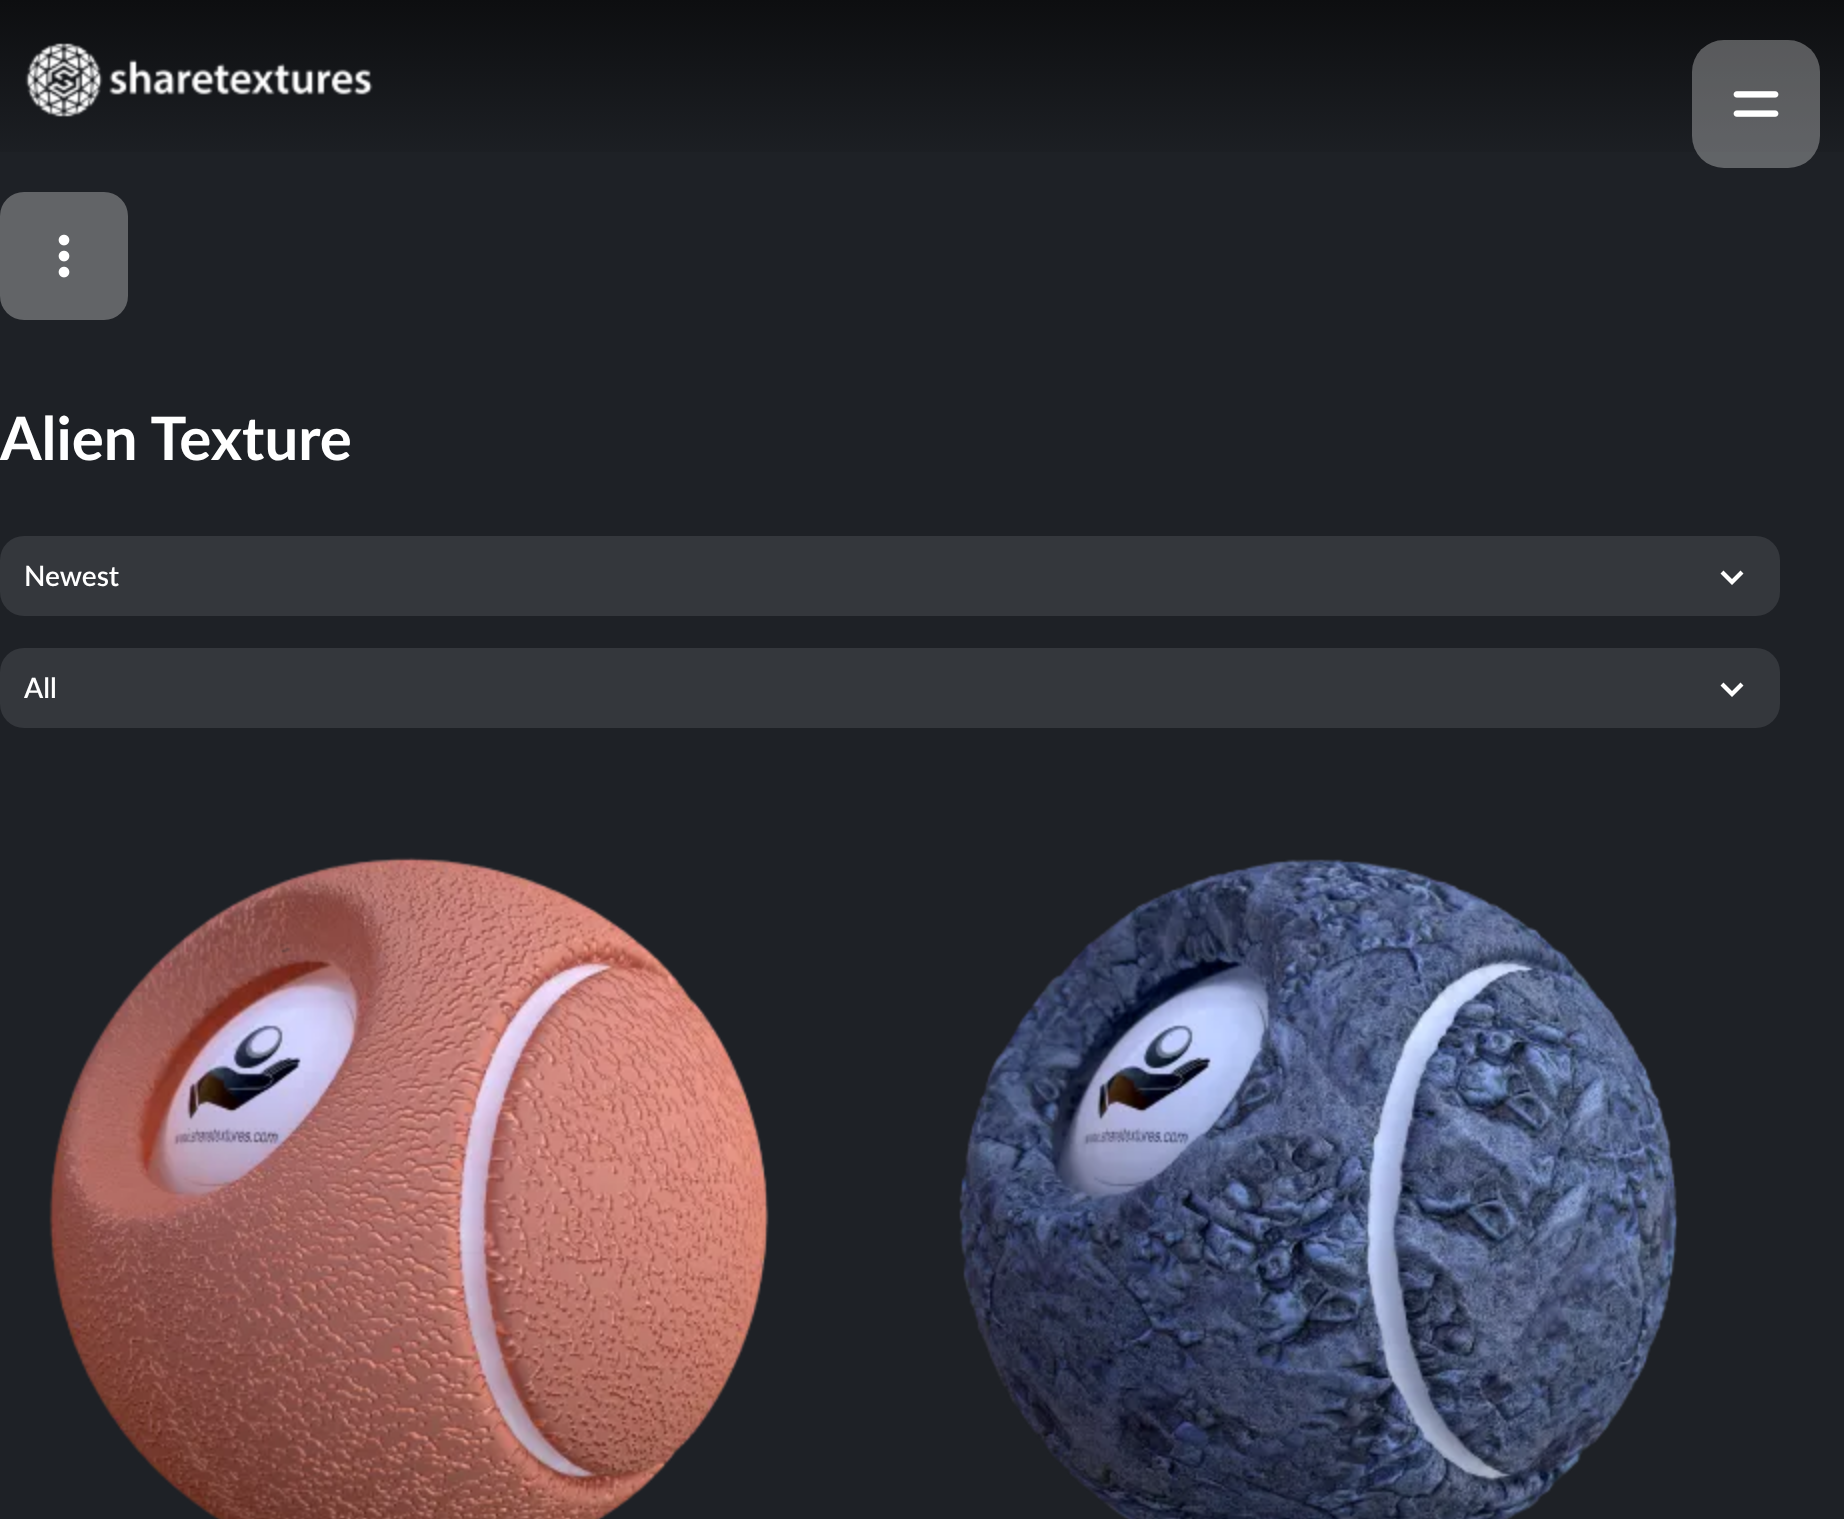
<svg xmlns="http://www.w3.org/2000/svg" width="1844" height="1519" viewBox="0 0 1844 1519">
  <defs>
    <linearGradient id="g1" gradientUnits="userSpaceOnUse" x1="922" y1="0" x2="922" y2="172"><stop offset="0" stop-color="#0d0e10"/><stop offset="1" stop-color="#1e2126"/></linearGradient>
  </defs>
  <rect width="100%" height="100%" fill="#1e2126"/>
  <path d="M0 0h1844v152H0z" fill="url(#g1)"/>
  <image x="25" y="43" width="348" height="74" href="img/1.png"/>
  <rect x="1692" y="40" width="128" height="128" rx="32" fill="#ffffff4d"/>
  <image x="1733" y="91" width="46" height="26" href="img/2.png"/>
  <rect y="192" width="128" height="128" rx="24" fill="#626467"/>
  <image x="58" y="234" width="12" height="44" href="img/3.png"/>
  <rect y="536" width="1780" height="80" rx="24" fill="#34373c"/>
  <path d="M1740.5 570.5L1732 579L1723.5 570.5L1720.5 573.5L1732 585L1743.5 573.5Z" fill="#fff"/>
  <rect y="648" width="1780" height="80" rx="24" fill="#34373c"/>
  <path d="M1740.5 682.5L1732 691L1723.5 682.5L1720.5 685.5L1732 697L1743.5 685.5Z" fill="#fff"/>
  <image x="49" y="857" width="720" height="662" href="img/4.png"/>
  <image x="959" y="859" width="720" height="660" href="img/5.png"/>
  <text x="0" y="460" font-family="Lato" font-size="60" font-weight="bold" fill="#fff">Alien Texture</text>
  <g font-family="Lato" font-size="28" font-weight="600" fill="#fff">
    <text x="24" y="586">Newest</text>
    <text x="24" y="698">All</text>
  </g>
</svg>
